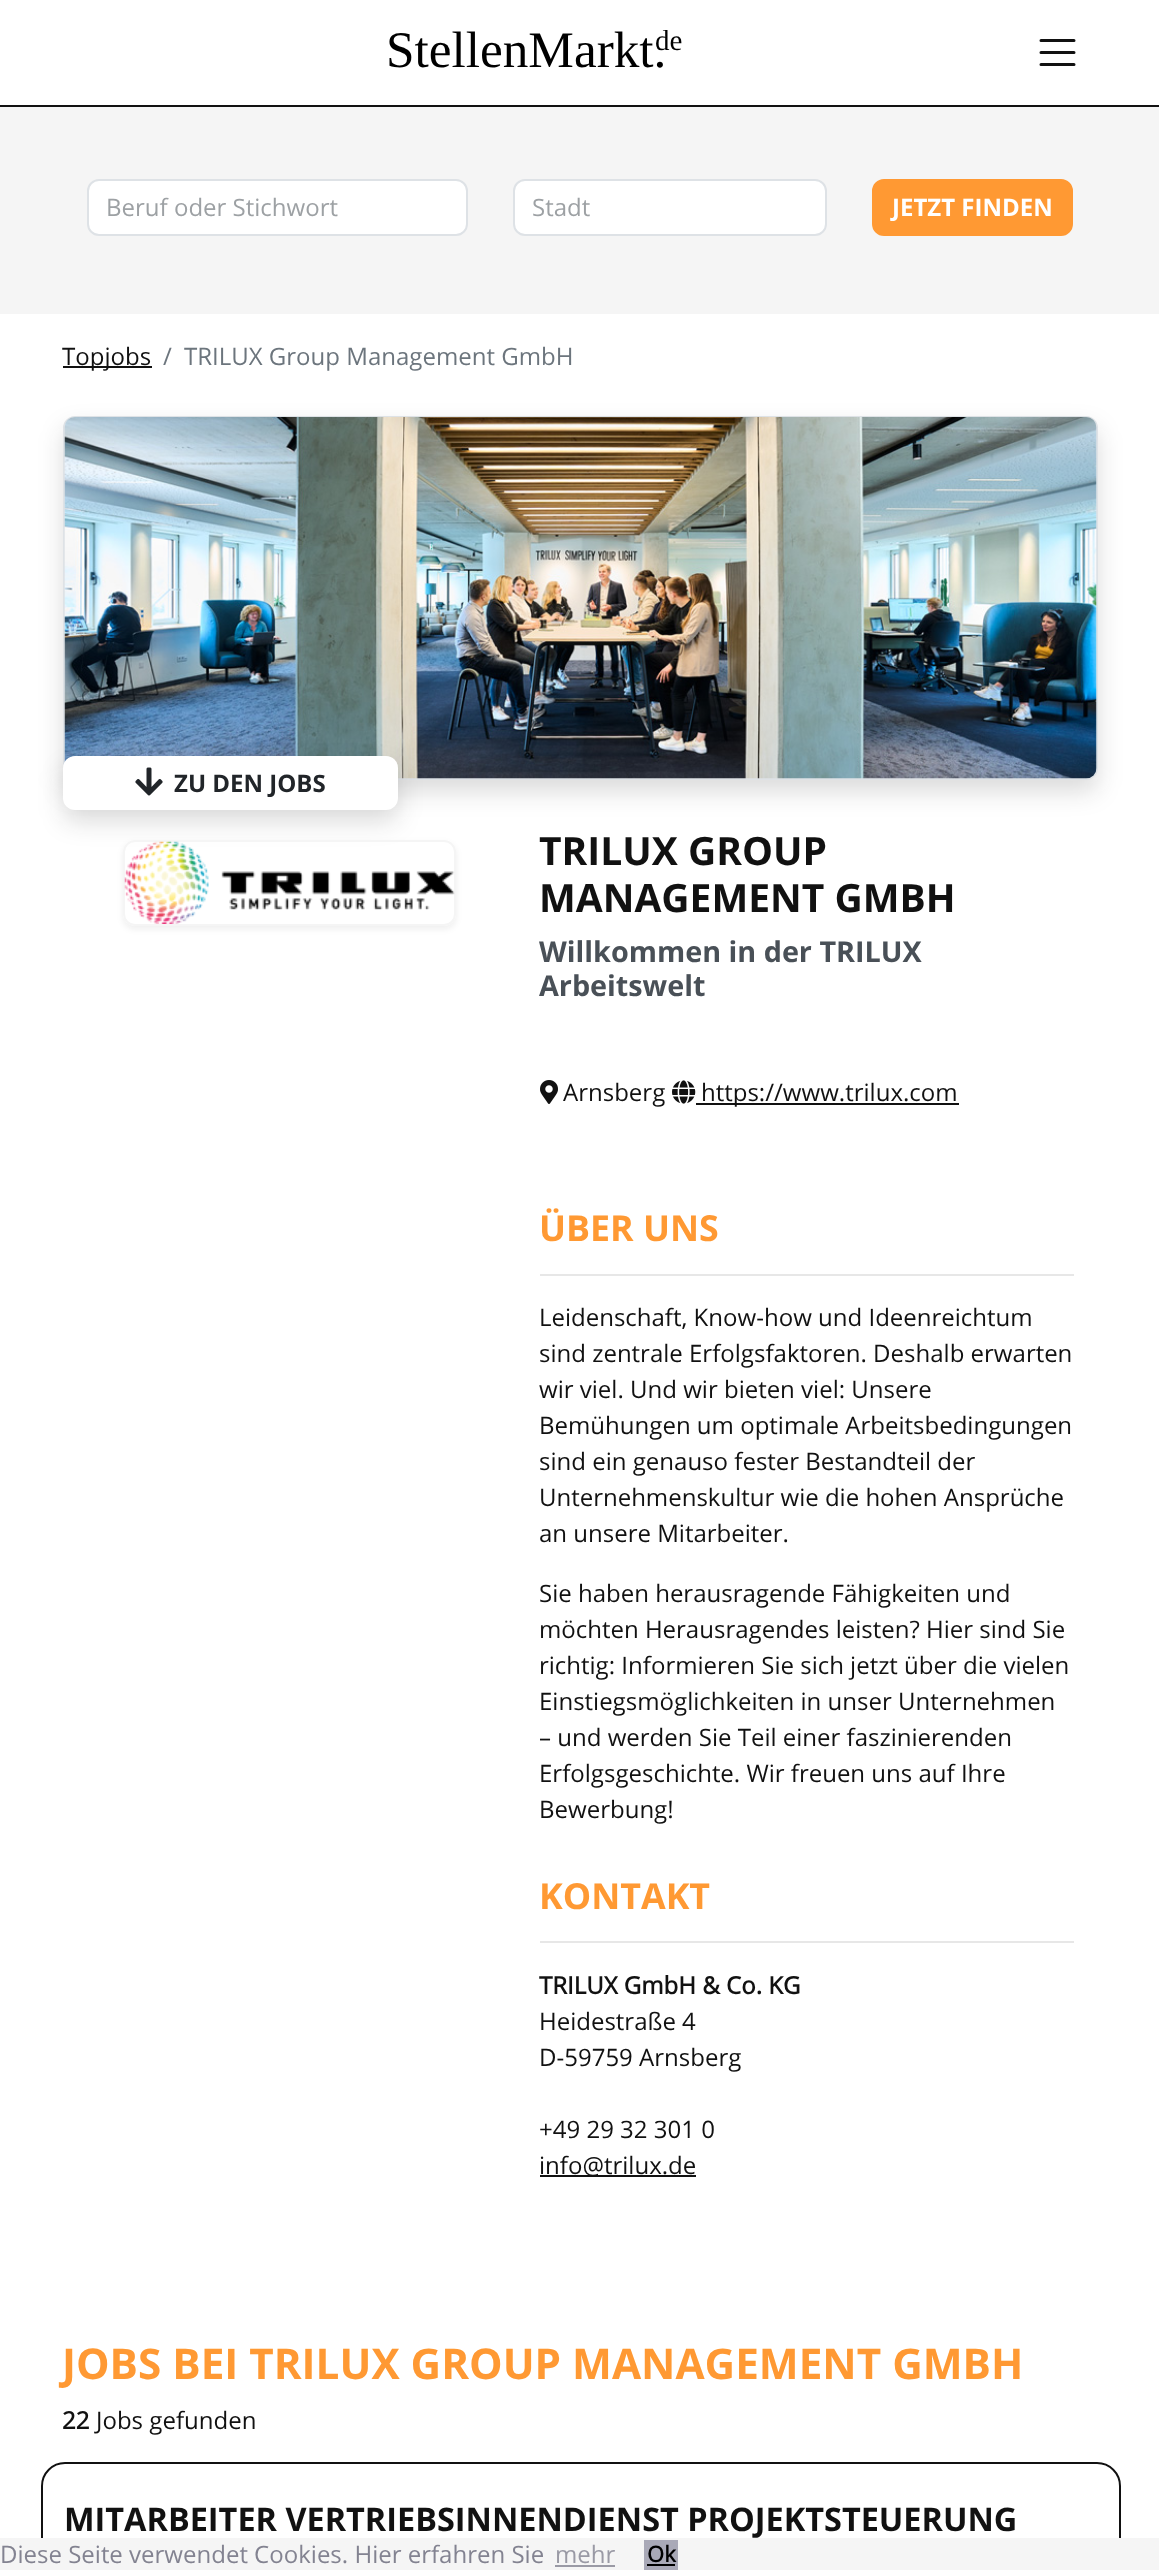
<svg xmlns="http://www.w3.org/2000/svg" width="1159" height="2570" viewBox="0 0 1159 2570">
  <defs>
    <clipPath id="clip1"><path d="M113 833H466V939H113ZM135 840H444C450.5 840 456 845.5 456 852V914C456 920.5 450.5 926 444 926H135C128.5 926 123 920.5 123 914V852C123 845.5 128.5 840 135 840Z" clip-rule="evenodd"/></clipPath>
  </defs>
  <rect width="100%" height="100%" fill="#fff"/>
  <path d="M0 105h1159v2H0z" fill="#111"/>
  <path d="M1041 40.5H1074M1041 52.5H1074M1041 64.5H1074" fill="none" stroke="#111" stroke-width="3" stroke-linecap="round"/>
  <path d="M0 107h1159v207H0z" fill="#f5f5f5"/>
  <rect x="88" y="180" width="379" height="55" rx="11" fill="#fff" stroke="#dee2e6" stroke-width="2"/>
  <rect x="514" y="180" width="312" height="55" rx="11" fill="#fff" stroke="#dee2e6" stroke-width="2"/>
  <rect x="873" y="180" width="199" height="55" rx="11" fill="#f93" stroke="#f93" stroke-width="2"/>
  <path d="M63 366h89v2H63z" fill="#111"/>
  <rect x="63" y="428" width="1035" height="364" rx="12" fill="#11111126" filter="blur(12px)"/>
  <rect x="64" y="417" width="1033" height="362" rx="11" fill="none" stroke="#dee2e6" stroke-width="2"/>
  <image x="64" y="417" width="1033" height="362" href="img/1.png"/>
  <rect x="63" y="768" width="335" height="54" rx="12" fill="#11111126" filter="blur(12px)"/>
  <rect x="63" y="756" width="335" height="54" rx="12" fill="#fff"/>
  <image x="135" y="767" width="28" height="29" href="img/2.png"/>
  <g clip-path="url(#clip1)">
    <rect x="123" y="843" width="333" height="86" rx="12" fill="#11111112" filter="blur(3px)"/>
  </g>
  <rect x="124" y="841" width="331" height="84" rx="11" fill="none" stroke="#f5f5f5" stroke-width="2"/>
  <image x="124" y="841" width="331" height="83" href="img/3.png"/>
  <image x="540" y="1080" width="18" height="24" href="img/4.png"/>
  <image x="672" y="1080" width="24" height="24" href="img/5.png"/>
  <path d="M696 1103h263v2H696z" fill="#111"/>
  <path d="M540 1274h534v2H540z" fill="#e7e7e7"/>
  <path d="M540 1941h534v2H540z" fill="#e7e7e7"/>
  <path d="M540 2175h156v2H540z" fill="#111"/>
  <rect x="42" y="2463" width="1078" height="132" rx="23" fill="none" stroke="#111" stroke-width="2"/>
  <path d="M0 2538h1159v32H0z" fill="#f5f5f5"/>
  <path d="M555 2565h60v2H555z" fill="#9a9aa5"/>
  <path d="M644 2540h34v30H644z" fill="#a9a9b7"/>
  <path d="M647 2564h28v2H647z" fill="#000"/>
  <text x="386" y="67" font-family="Liberation Serif" font-size="51.25" fill="#000">StellenMarkt.</text>
  <text x="655" y="50" font-family="Liberation Serif" font-size="29" fill="#000">de</text>
  <g font-family="Open Sans" font-size="24" fill="#9da1a4">
    <text x="106" y="216">Beruf oder Stichwort</text>
    <text x="532" y="216">Stadt</text>
  </g>
  <text x="892" y="216" font-family="Open Sans" font-size="24" font-weight="bold" fill="#fff">JETZT FINDEN</text>
  <text x="62" y="365" font-family="Open Sans" font-size="24" fill="#111">Topjobs</text>
  <g font-family="Open Sans" font-size="24" fill="#6c757d">
    <text x="163" y="365">/</text>
    <text x="184" y="365">TRILUX Group Management GmbH</text>
  </g>
  <text x="174" y="792" font-family="Open Sans" font-size="24" font-weight="bold" fill="#212529">ZU DEN JOBS</text>
  <g font-family="Open Sans" font-size="39" font-weight="bold" fill="#111">
    <text x="539" y="865">TRILUX GROUP</text>
    <text x="539" y="912">MANAGEMENT GMBH</text>
  </g>
  <g font-family="Open Sans" font-size="28.75" font-weight="bold" fill="#495057">
    <text x="539" y="962">Willkommen in der TRILUX</text>
    <text x="539" y="996">Arbeitswelt</text>
  </g>
  <g font-family="Open Sans" font-size="24" fill="#111">
    <text x="563" y="1101">Arnsberg</text>
    <text x="701" y="1101">https://www.trilux.com</text>
  </g>
  <text x="539" y="1241" font-family="Open Sans" font-size="35.75" font-weight="bold" fill="#f93">ÜBER UNS</text>
  <g font-family="Open Sans" font-size="24" fill="#111">
    <text x="539" y="1326">Leidenschaft, Know-how und Ideenreichtum</text>
    <text x="539" y="1362">sind zentrale Erfolgsfaktoren. Deshalb erwarten</text>
    <text x="539" y="1398">wir viel. Und wir bieten viel: Unsere</text>
    <text x="539" y="1434">Bemühungen um optimale Arbeitsbedingungen</text>
    <text x="539" y="1470">sind ein genauso fester Bestandteil der</text>
    <text x="539" y="1506">Unternehmenskultur wie die hohen Ansprüche</text>
    <text x="539" y="1542">an unsere Mitarbeiter.</text>
    <text x="539" y="1602">Sie haben herausragende Fähigkeiten und</text>
    <text x="539" y="1638">möchten Herausragendes leisten? Hier sind Sie</text>
    <text x="539" y="1674">richtig: Informieren Sie sich jetzt über die vielen</text>
    <text x="539" y="1710">Einstiegsmöglichkeiten in unser Unternehmen</text>
    <text x="539" y="1746">– und werden Sie Teil einer faszinierenden</text>
    <text x="539" y="1782">Erfolgsgeschichte. Wir freuen uns auf Ihre</text>
    <text x="539" y="1818">Bewerbung!</text>
  </g>
  <text x="539" y="1909" font-family="Open Sans" font-size="35.75" font-weight="bold" fill="#f93">KONTAKT</text>
  <text x="539" y="1994" font-family="'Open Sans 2'" font-size="24" font-weight="bold" fill="#111">TRILUX GmbH &amp; Co. KG</text>
  <g font-family="Open Sans" font-size="24" fill="#111">
    <text x="539" y="2030">Heidestraße 4</text>
    <text x="539" y="2066">D-59759 Arnsberg</text>
    <text x="539" y="2138">+49 29 32 301 0</text>
    <text x="539" y="2174">info@trilux.de</text>
  </g>
  <text x="62" y="2379" font-family="Open Sans" font-size="42.25" font-weight="bold" fill="#f93">JOBS BEI TRILUX GROUP MANAGEMENT GMBH</text>
  <text x="62" y="2429" font-family="'Open Sans 2'" font-size="24" font-weight="bold" fill="#111">22</text>
  <text x="96" y="2429" font-family="Open Sans" font-size="24" fill="#111">Jobs gefunden</text>
  <text x="64" y="2531" font-family="Open Sans" font-size="32.45" font-weight="bold" fill="#111">MITARBEITER VERTRIEBSINNENDIENST PROJEKTSTEUERUNG</text>
  <text x="0" y="2563" font-family="Open Sans" font-size="24" fill="#838391">Diese Seite verwendet Cookies. Hier erfahren Sie</text>
  <text x="555" y="2563" font-family="Open Sans" font-size="24" fill="#9a9aa5">mehr</text>
  <text x="647" y="2562" font-family="'Open Sans 2'" font-size="22" font-weight="bold" fill="#000">Ok</text>
</svg>
